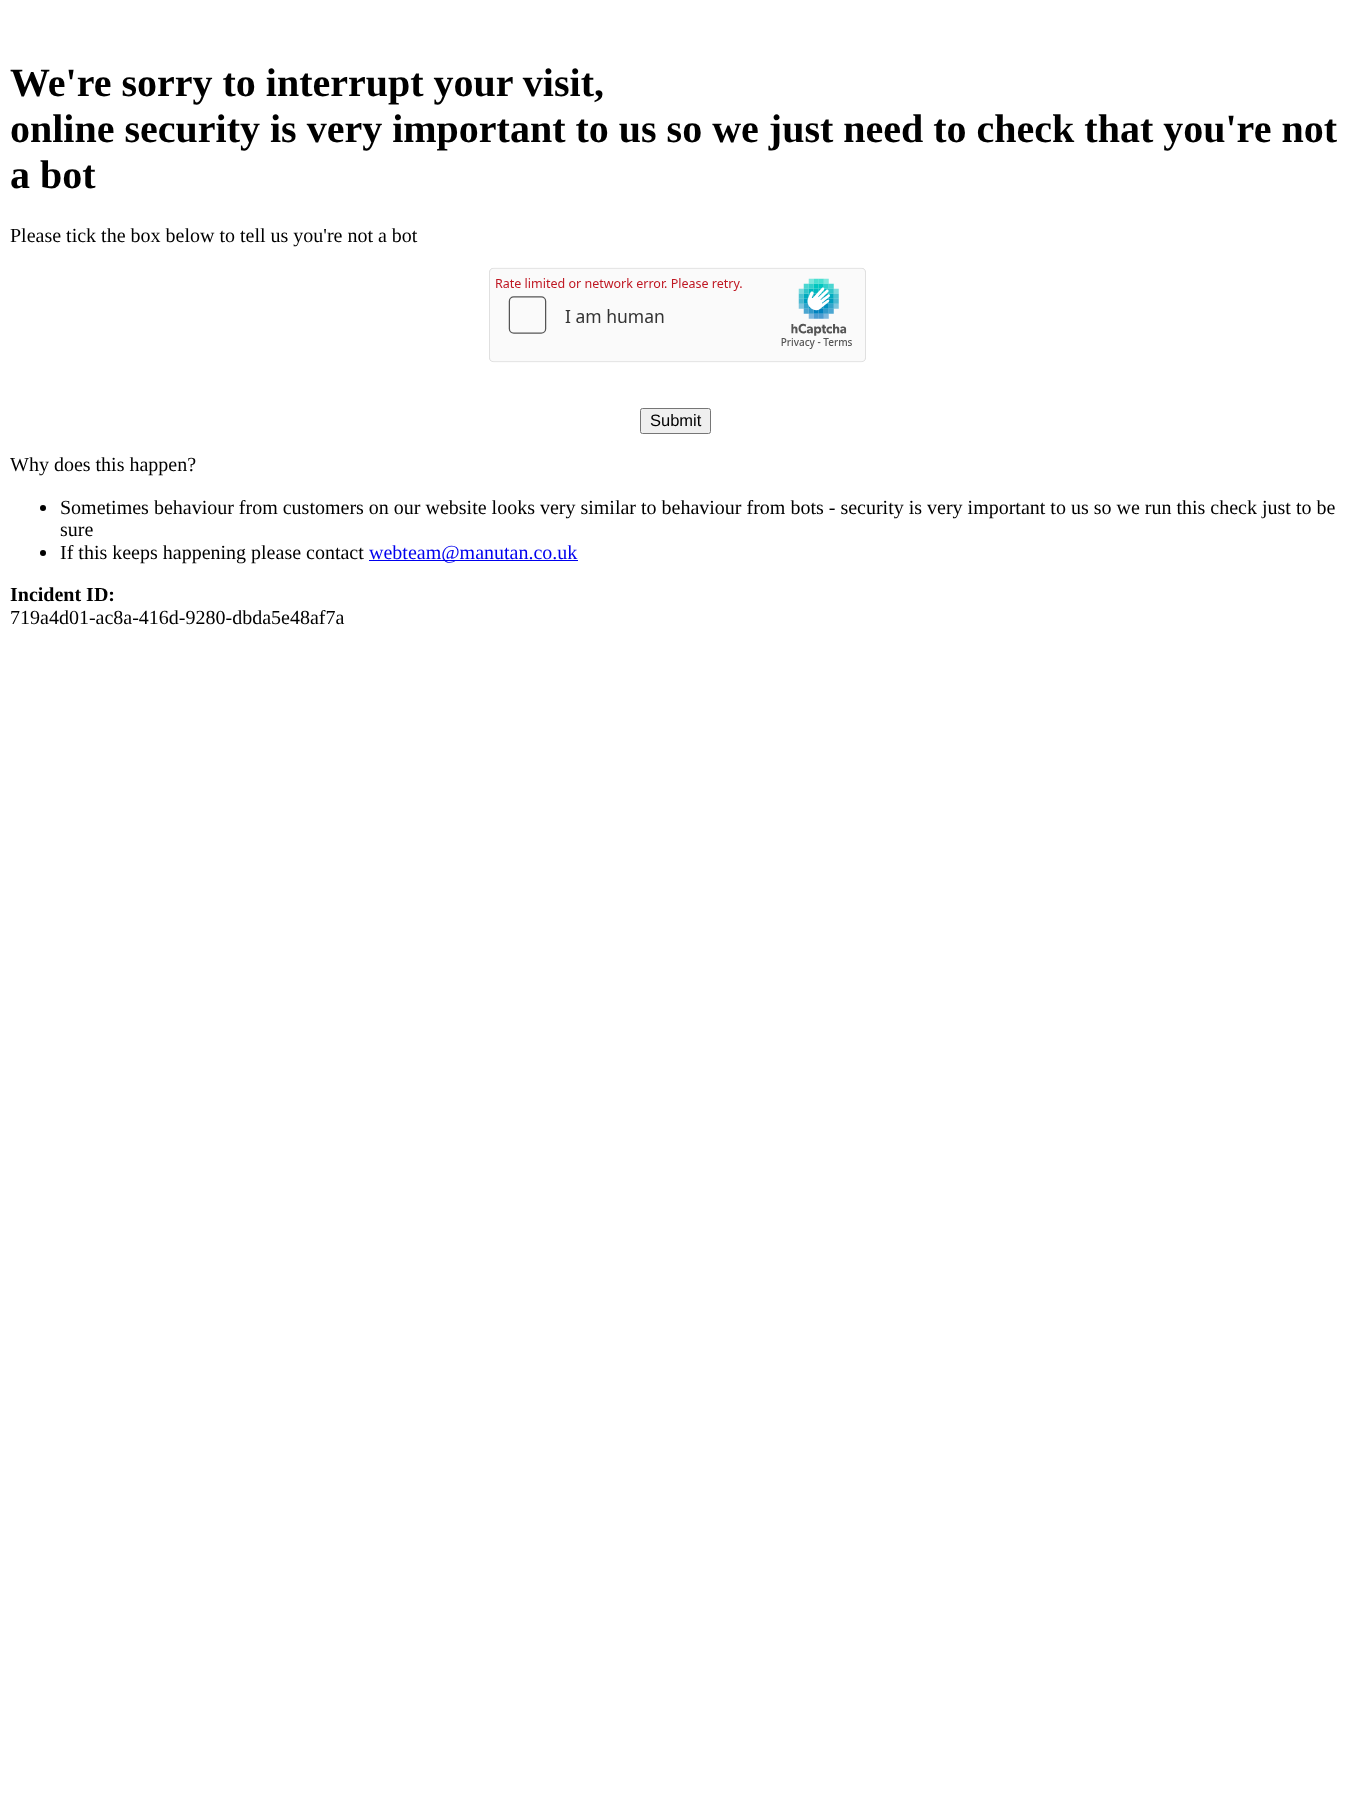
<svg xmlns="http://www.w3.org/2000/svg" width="1351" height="1802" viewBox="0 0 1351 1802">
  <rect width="100%" height="100%" fill="#fff"/>
  <image x="489" y="267" width="377" height="96" href="img/1.png"/>
  <rect x="640.5" y="408.5" width="70" height="25" rx="2" fill="#efefef" stroke="#767676"/>
  <circle cx="43" cy="508" r="3" fill="#000"/>
  <circle cx="43" cy="553" r="3" fill="#000"/>
  <path d="M369 560h209v1H369z" fill="#00e"/>
  <g font-family="Liberation Serif" font-size="40" font-weight="bold" fill="#000">
    <text x="10" y="96">We're sorry to interrupt your visit,</text>
    <text x="10" y="142">online security is very important to us so we just need to check that you're not</text>
    <text x="10" y="188">a bot</text>
  </g>
  <text x="10" y="242" font-family="Liberation Serif" font-size="20" fill="#000">Please tick the box below to tell us you're not a bot</text>
  <text x="650" y="426" font-family="Liberation Sans" font-size="16.5" fill="#000">Submit</text>
  <g font-family="Liberation Serif" font-size="20" fill="#000">
    <text x="10" y="471">Why does this happen?</text>
    <text x="60" y="514">Sometimes behaviour from customers on our website looks very similar to behaviour from bots - security is very important to us so we run this check just to be</text>
    <text x="60" y="536">sure</text>
    <text x="60" y="559">If this keeps happening please contact</text>
  </g>
  <text x="369" y="559" font-family="Liberation Serif" font-size="20" fill="#00e">webteam@manutan.co.uk</text>
  <text x="10" y="601" font-family="Liberation Serif" font-size="20" font-weight="bold" fill="#000">Incident ID:</text>
  <text x="10" y="624" font-family="Liberation Serif" font-size="20" fill="#000">719a4d01-ac8a-416d-9280-dbda5e48af7a</text>
</svg>
